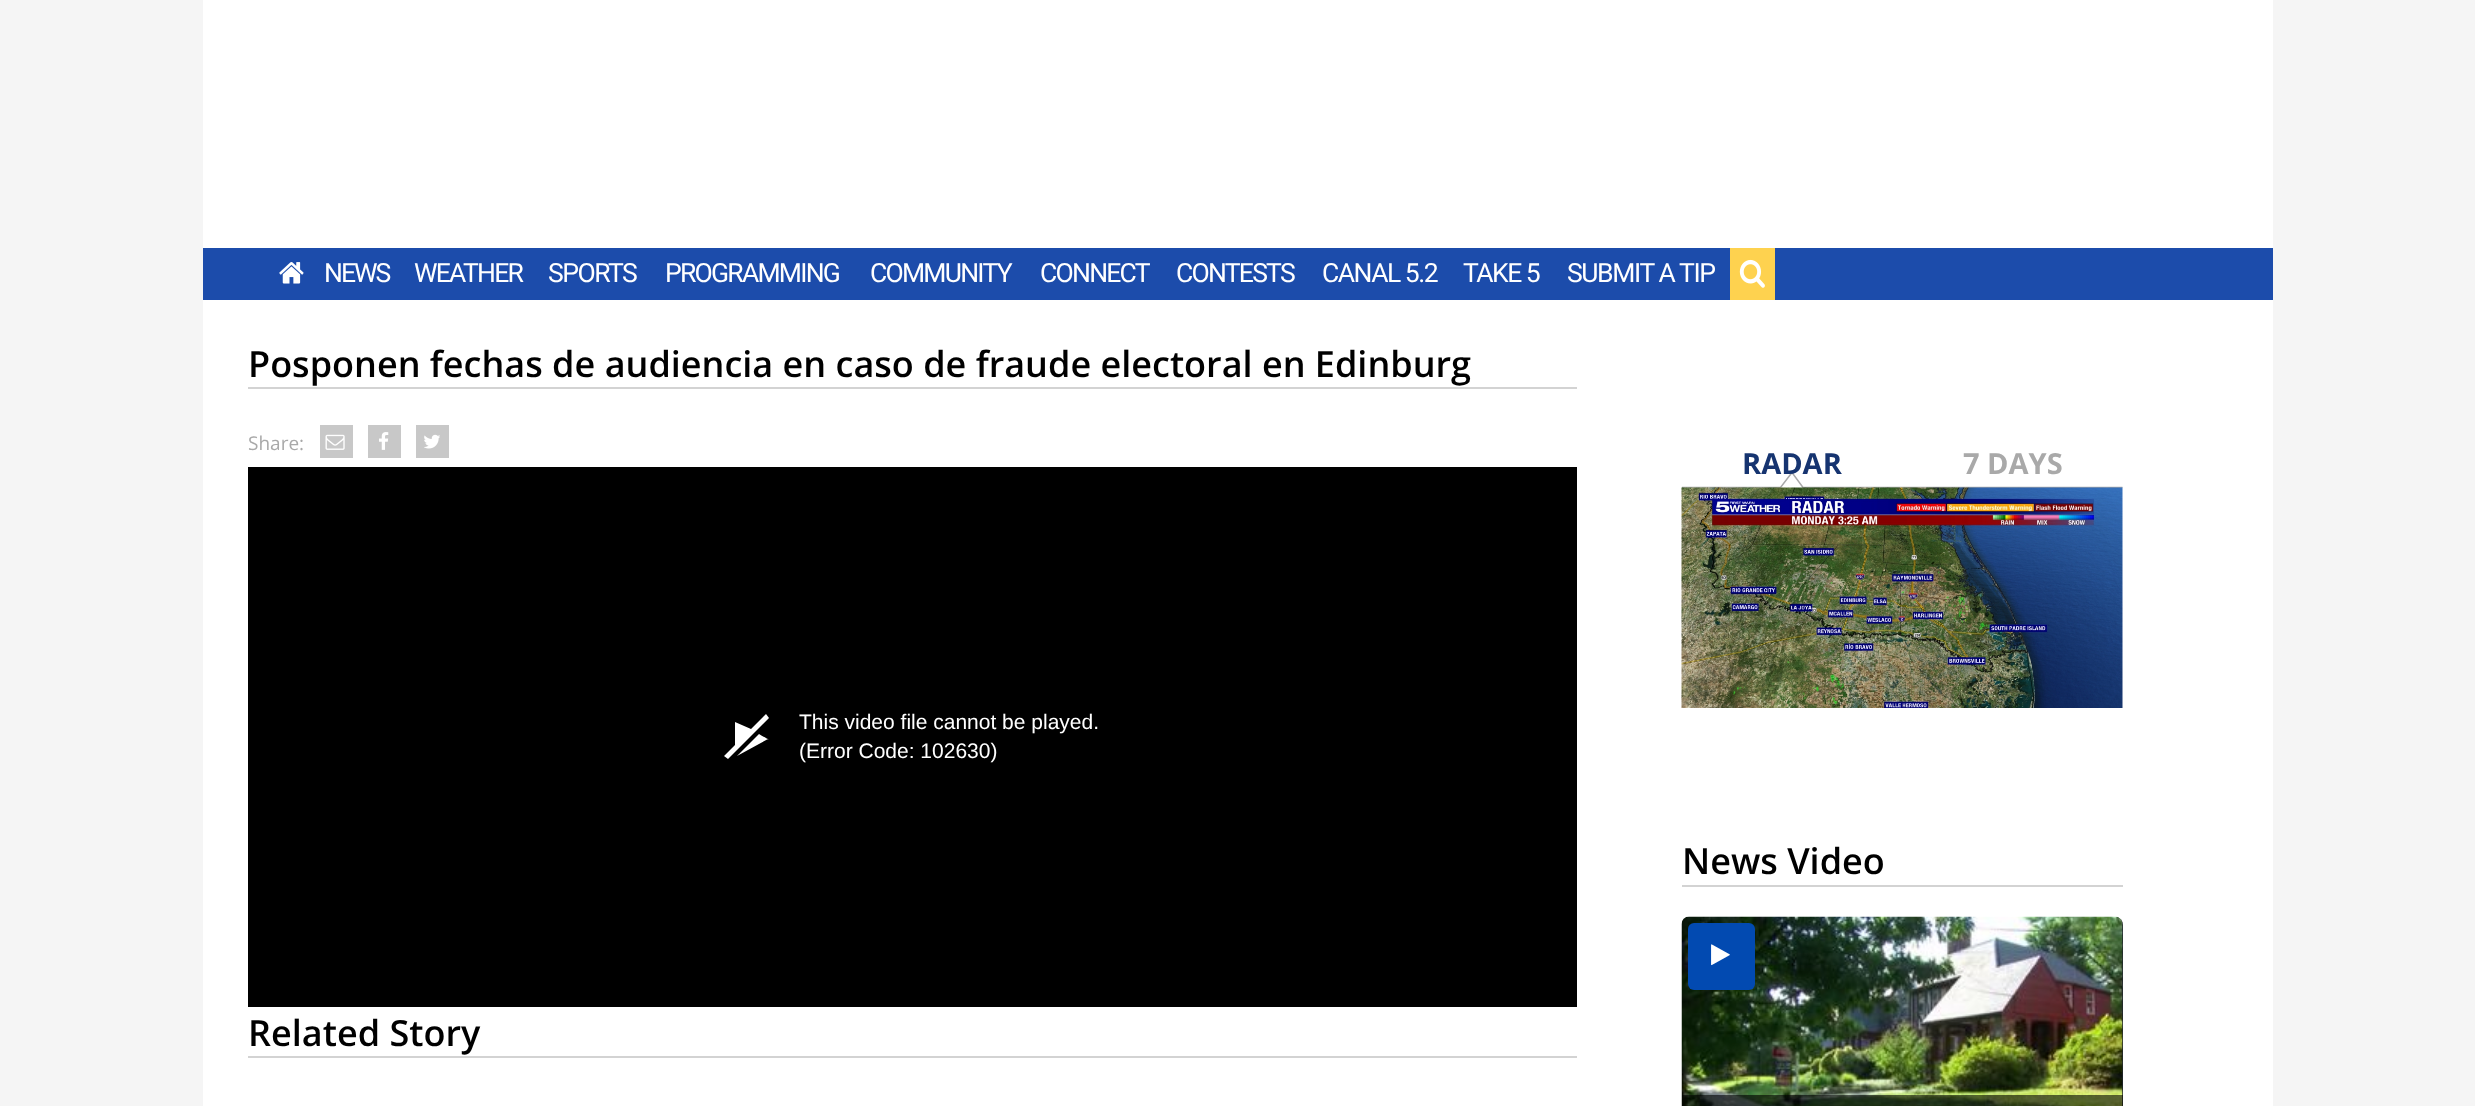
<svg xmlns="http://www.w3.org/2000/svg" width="2475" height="1106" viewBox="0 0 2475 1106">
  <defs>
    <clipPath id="clip1"><path d="M1682 428h441v60H1682z"/></clipPath>
  </defs>
  <rect width="100%" height="100%" fill="#f5f5f5"/>
  <path d="M203 0h2070v248H203z" fill="#fff"/>
  <path d="M203 248h2070v52H203z" fill="#1c4cab"/>
  <image x="279" y="262" width="25" height="22" href="img/1.png"/>
  <path d="M1730 248h45v52H1730z" fill="#fed24f"/>
  <image x="1739" y="259" width="26" height="29" href="img/2.png"/>
  <path d="M203 300h2070v806H203z" fill="#fff"/>
  <path d="M248 387h1329v2H248z" fill="#d3d3d3"/>
  <path d="M320 425h33v33H320z" fill="#c8c8c8"/>
  <image x="325" y="434" width="20" height="16" href="img/3.png"/>
  <path d="M368 425h33v33H368z" fill="#c8c8c8"/>
  <image x="379" y="432" width="10" height="18" href="img/4.png"/>
  <path d="M416 425h33v33H416z" fill="#c8c8c8"/>
  <image x="424" y="434" width="16" height="15" href="img/5.png"/>
  <path d="M248 467h1329v540H248z" fill="#000"/>
  <path d="M768 739L737 756L759 734C767 739 769 739 768 740ZM766 714L751 729L735 722V745L724 756L728 759L769 718Z" fill="#fff"/>
  <path d="M248 1056h1329v2H248z" fill="#d3d3d3"/>
  <g clip-path="url(#clip1)">
    <path d="M1681.5 487.5H1780.5L1792 472.5L1803 487.5H2122.5" fill="none" stroke="#a9a9a9" stroke-width="1.5"/>
  </g>
  <image x="1681" y="487" width="442" height="221" href="img/6.png"/>
  <path d="M1682 885h441v2H1682z" fill="#d3d3d3"/>
  <rect x="1682" y="917" width="441" height="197" rx="8" fill="#21262c"/>
  <image x="1681" y="916" width="442" height="190" href="img/7.png"/>
  <rect x="1688" y="923" width="67" height="67" rx="6" fill="#024ab1"/>
  <image x="1711" y="944" width="19" height="22" href="img/8.png"/>
  <path d="M1682 1095h441v11H1682z" fill="#00000099"/>
  <text x="324" y="282" font-family="Roboto" font-size="26.5" letter-spacing="-2" fill="#fff">NEWS</text>
  <text x="414" y="282" font-family="Roboto" font-size="26.5" letter-spacing="-1.75" fill="#fff">WEATHER</text>
  <text x="548" y="282" font-family="Roboto" font-size="26.5" letter-spacing="-1.5" fill="#fff">SPORTS</text>
  <g font-family="Roboto" font-size="26.5" letter-spacing="-1.75" fill="#fff">
    <text x="665" y="282">PROGRAMMING</text>
    <text x="870" y="282">COMMUNITY</text>
    <text x="1040" y="282">CONNECT</text>
    <text x="1176" y="282">CONTESTS</text>
  </g>
  <g font-family="Roboto" font-size="26.5" letter-spacing="-1.5" fill="#fff">
    <text x="1322" y="282">CANAL 5.2</text>
    <text x="1463" y="282">TAKE 5</text>
  </g>
  <text x="1567" y="282" font-family="Roboto" font-size="26.5" letter-spacing="-1.4" fill="#fff">SUBMIT A TIP</text>
  <text x="248" y="377" font-family="Open Sans" font-size="36" font-weight="600" fill="#000">Posponen fechas de audiencia en caso de fraude electoral en Edinburg</text>
  <text x="248" y="450" font-family="Open Sans" font-size="19" fill="#a9a9a9">Share:</text>
  <g font-family="Liberation Sans" font-size="21" fill="#fff">
    <text x="799" y="729">This video file cannot be played.</text>
    <text x="799" y="758">(Error Code: 102630)</text>
  </g>
  <text x="248" y="1046" font-family="Open Sans" font-size="36" font-weight="600" fill="#000">Related Story</text>
  <text x="1742" y="474" font-family="Open Sans" font-size="29" font-weight="bold" fill="#163470">RADAR</text>
  <text x="1963" y="474" font-family="Open Sans" font-size="29" font-weight="bold" fill="#a9a9a9">7 DAYS</text>
  <text x="1682" y="874" font-family="Open Sans" font-size="36" font-weight="600" fill="#000">News Video</text>
</svg>
